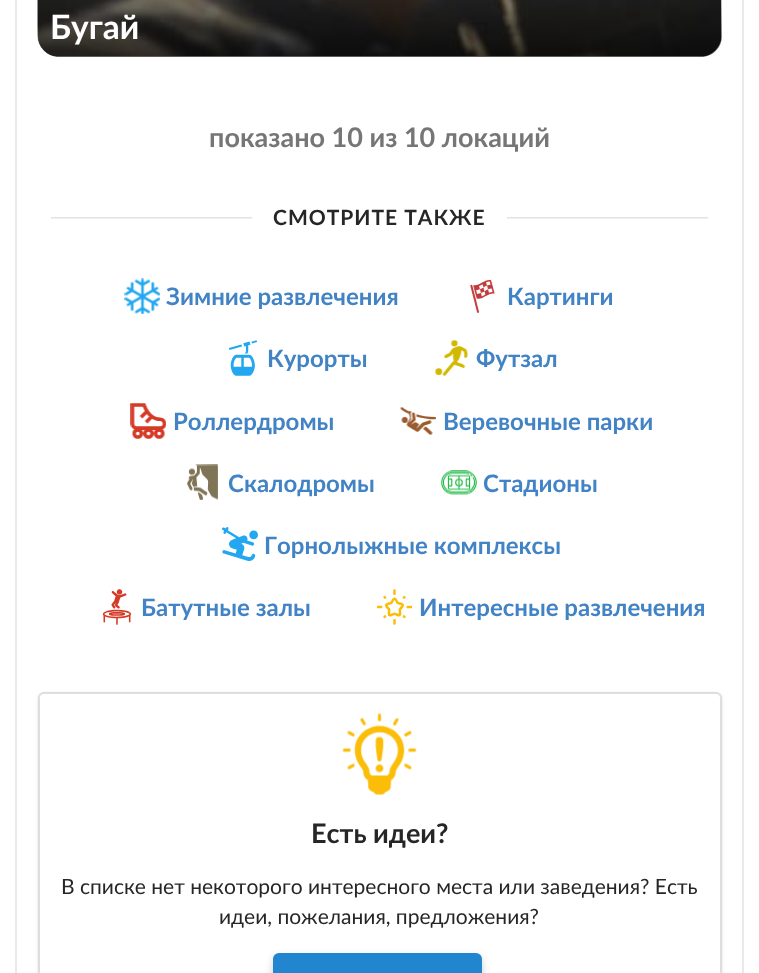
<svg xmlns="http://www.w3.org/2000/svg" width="759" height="973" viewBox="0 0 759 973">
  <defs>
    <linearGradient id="g1" gradientUnits="userSpaceOnUse" x1="380" y1="-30" x2="380" y2="57"><stop offset="0" stop-color="#000" stop-opacity="0"/><stop offset="1" stop-color="#000" stop-opacity="0.65"/></linearGradient>
  </defs>
  <rect width="100%" height="100%" fill="#fff"/>
  <path d="M16 -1h727v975H16z" fill="none" stroke="#e9e9e9" stroke-width="2"/>
  <image x="37" y="0" width="684" height="56" href="img/1.png"/>
  <path d="M38-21H722V36C722 47.5 712.5 57 701 57H59C47.5 57 38 47.5 38 36Z" fill="url(#g1)"/>
  <image x="51" y="217" width="201" height="2" href="img/2.png"/>
  <image x="507" y="217" width="201" height="2" href="img/2.png"/>
  <image x="124" y="278" width="36" height="36" href="img/3.png"/>
  <image x="470" y="279" width="25" height="34" href="img/4.png"/>
  <image x="229" y="340" width="28" height="36" href="img/5.png"/>
  <image x="435" y="340" width="34" height="36" href="img/6.png"/>
  <image x="130" y="403" width="36" height="36" href="img/7.png"/>
  <image x="400" y="407" width="36" height="28" href="img/8.png"/>
  <image x="187" y="464" width="31" height="36" href="img/9.png"/>
  <image x="441" y="470" width="36" height="25" href="img/10.png"/>
  <image x="222" y="527" width="36" height="34" href="img/11.png"/>
  <image x="102" y="589" width="30" height="36" href="img/12.png"/>
  <image x="376" y="589" width="37" height="36" href="img/13.png"/>
  <rect x="38" y="693" width="684" height="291" rx="6" fill="#22242626" filter="blur(1.5px)"/>
  <rect x="39" y="693" width="682" height="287" rx="5" fill="#fff" stroke="#dedede" stroke-width="2"/>
  <image x="342" y="713" width="75" height="82" href="img/14.png"/>
  <rect x="273" y="957" width="209" height="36" rx="6" fill="#00000033" filter="blur(4.5px)"/>
  <rect x="273" y="953" width="209" height="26" rx="6" fill="#2185d0"/>
  <text x="50" y="39" font-family="Lato" font-size="33.5" font-weight="bold" fill="#fff">Бугай</text>
  <text x="209" y="147" font-family="Lato" font-size="27" font-weight="bold" fill="#767676">показано 10 из 10 локаций</text>
  <text x="273" y="225" font-family="Lato" font-size="21" font-weight="bold" letter-spacing="1" fill="#262626">СМОТРИТЕ ТАКЖЕ</text>
  <g font-family="Lato" font-size="24" font-weight="bold" fill="#4183c4">
    <text x="166" y="305">Зимние развлечения</text>
    <text x="507" y="305">Картинги</text>
    <text x="267" y="367">Курорты</text>
    <text x="476" y="367">Футзал</text>
    <text x="173" y="430">Роллердромы</text>
    <text x="443" y="430">Веревочные парки</text>
    <text x="228" y="492">Скалодромы</text>
    <text x="483" y="492">Стадионы</text>
    <text x="264" y="554">Горнолыжные комплексы</text>
    <text x="141" y="616">Батутные залы</text>
    <text x="419" y="616">Интересные развлечения</text>
  </g>
  <text x="311" y="843" font-family="Lato" font-size="27" font-weight="bold" fill="#262626">Есть идеи?</text>
  <g font-family="Lato" font-size="21" fill="#262626">
    <text x="61" y="894">В списке нет некоторого интересного места или заведения? Есть</text>
    <text x="219" y="924">идеи, пожелания, предложения?</text>
  </g>
</svg>
